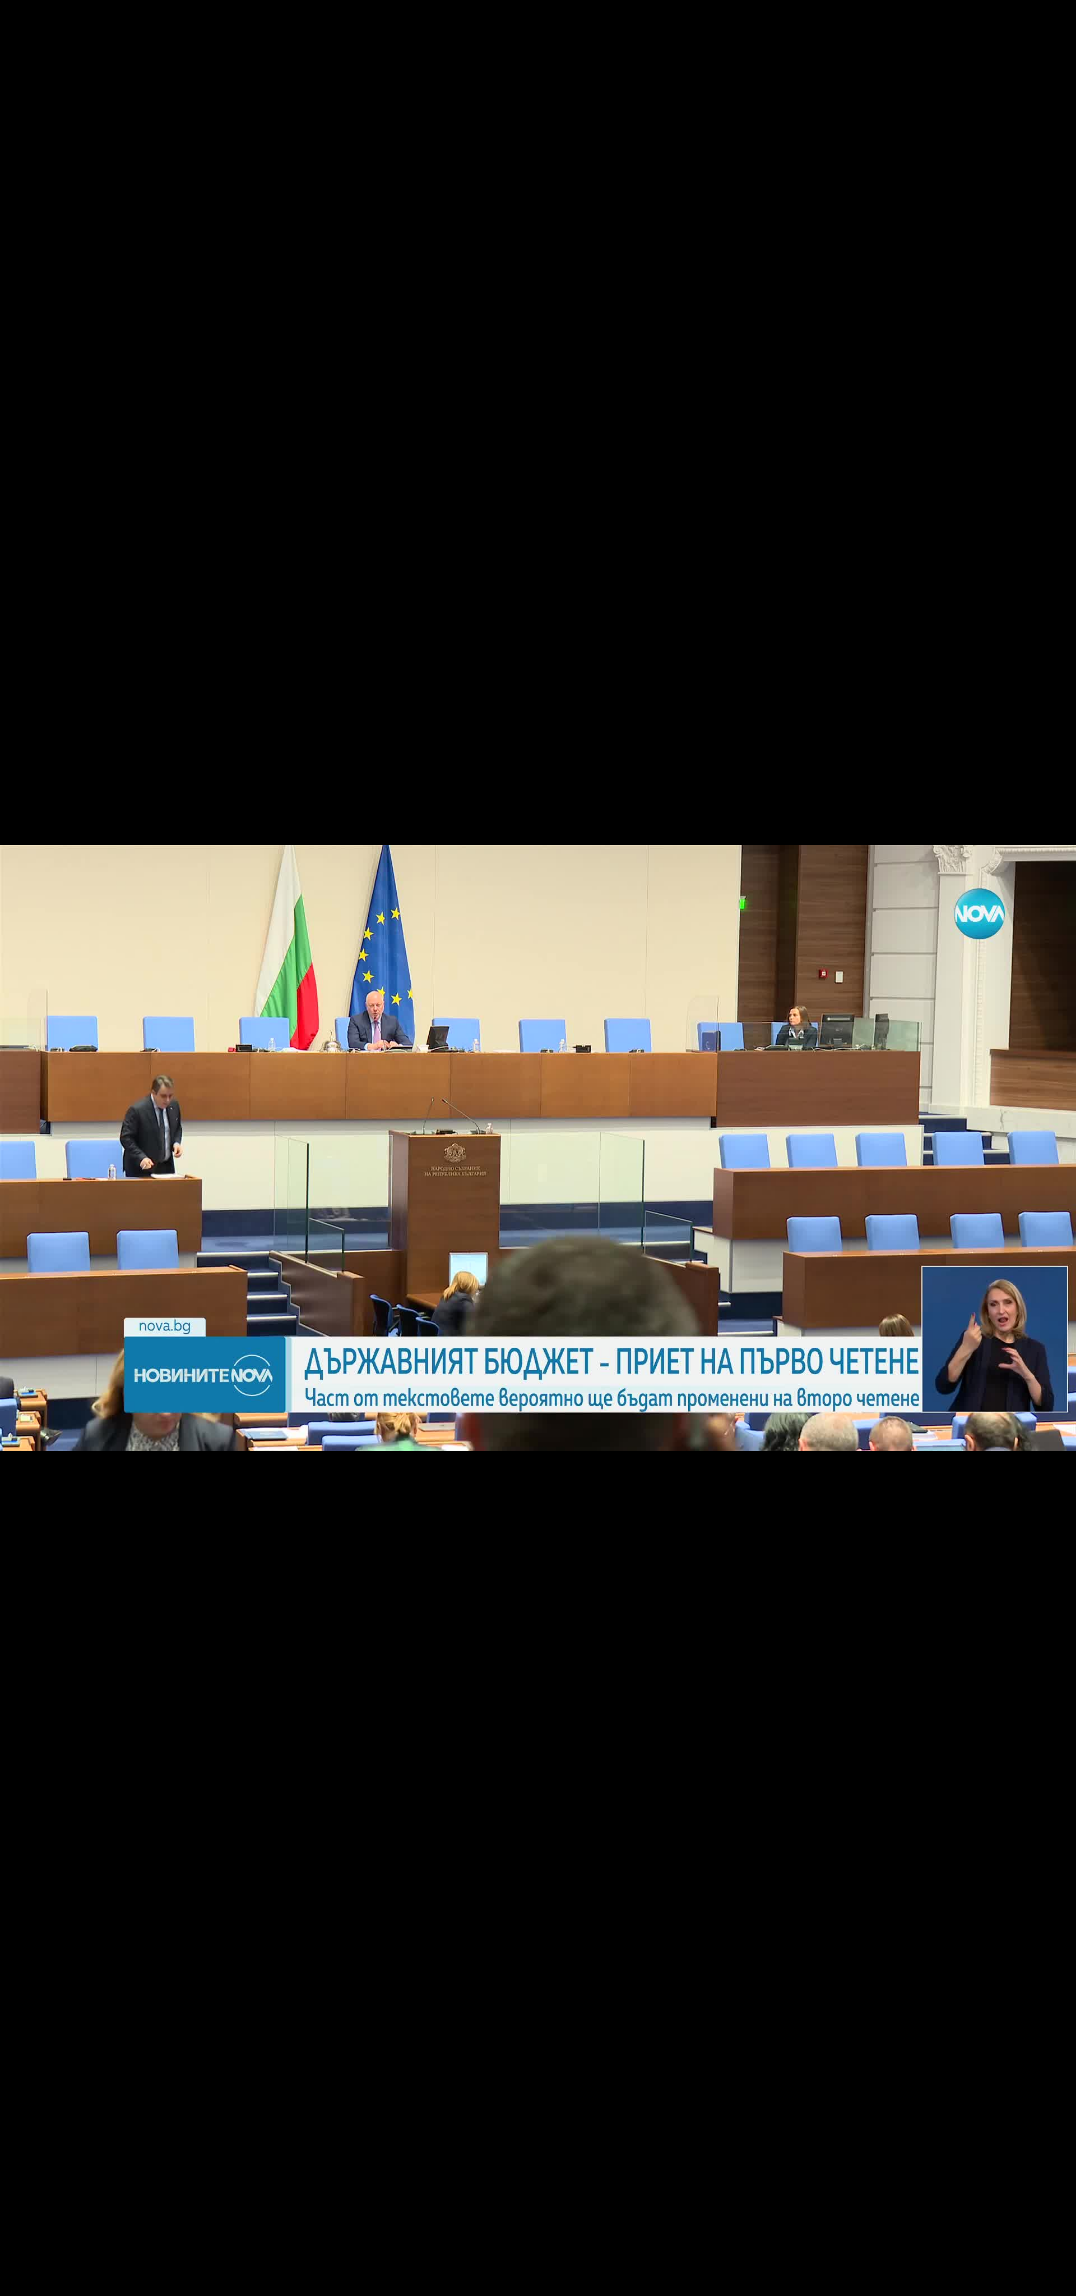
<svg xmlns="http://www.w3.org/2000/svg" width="1076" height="2296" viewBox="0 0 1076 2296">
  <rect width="100%" height="100%" fill="#000"/>
  <image x="0" y="845" width="1076" height="606" href="img/1.png"/>
</svg>
